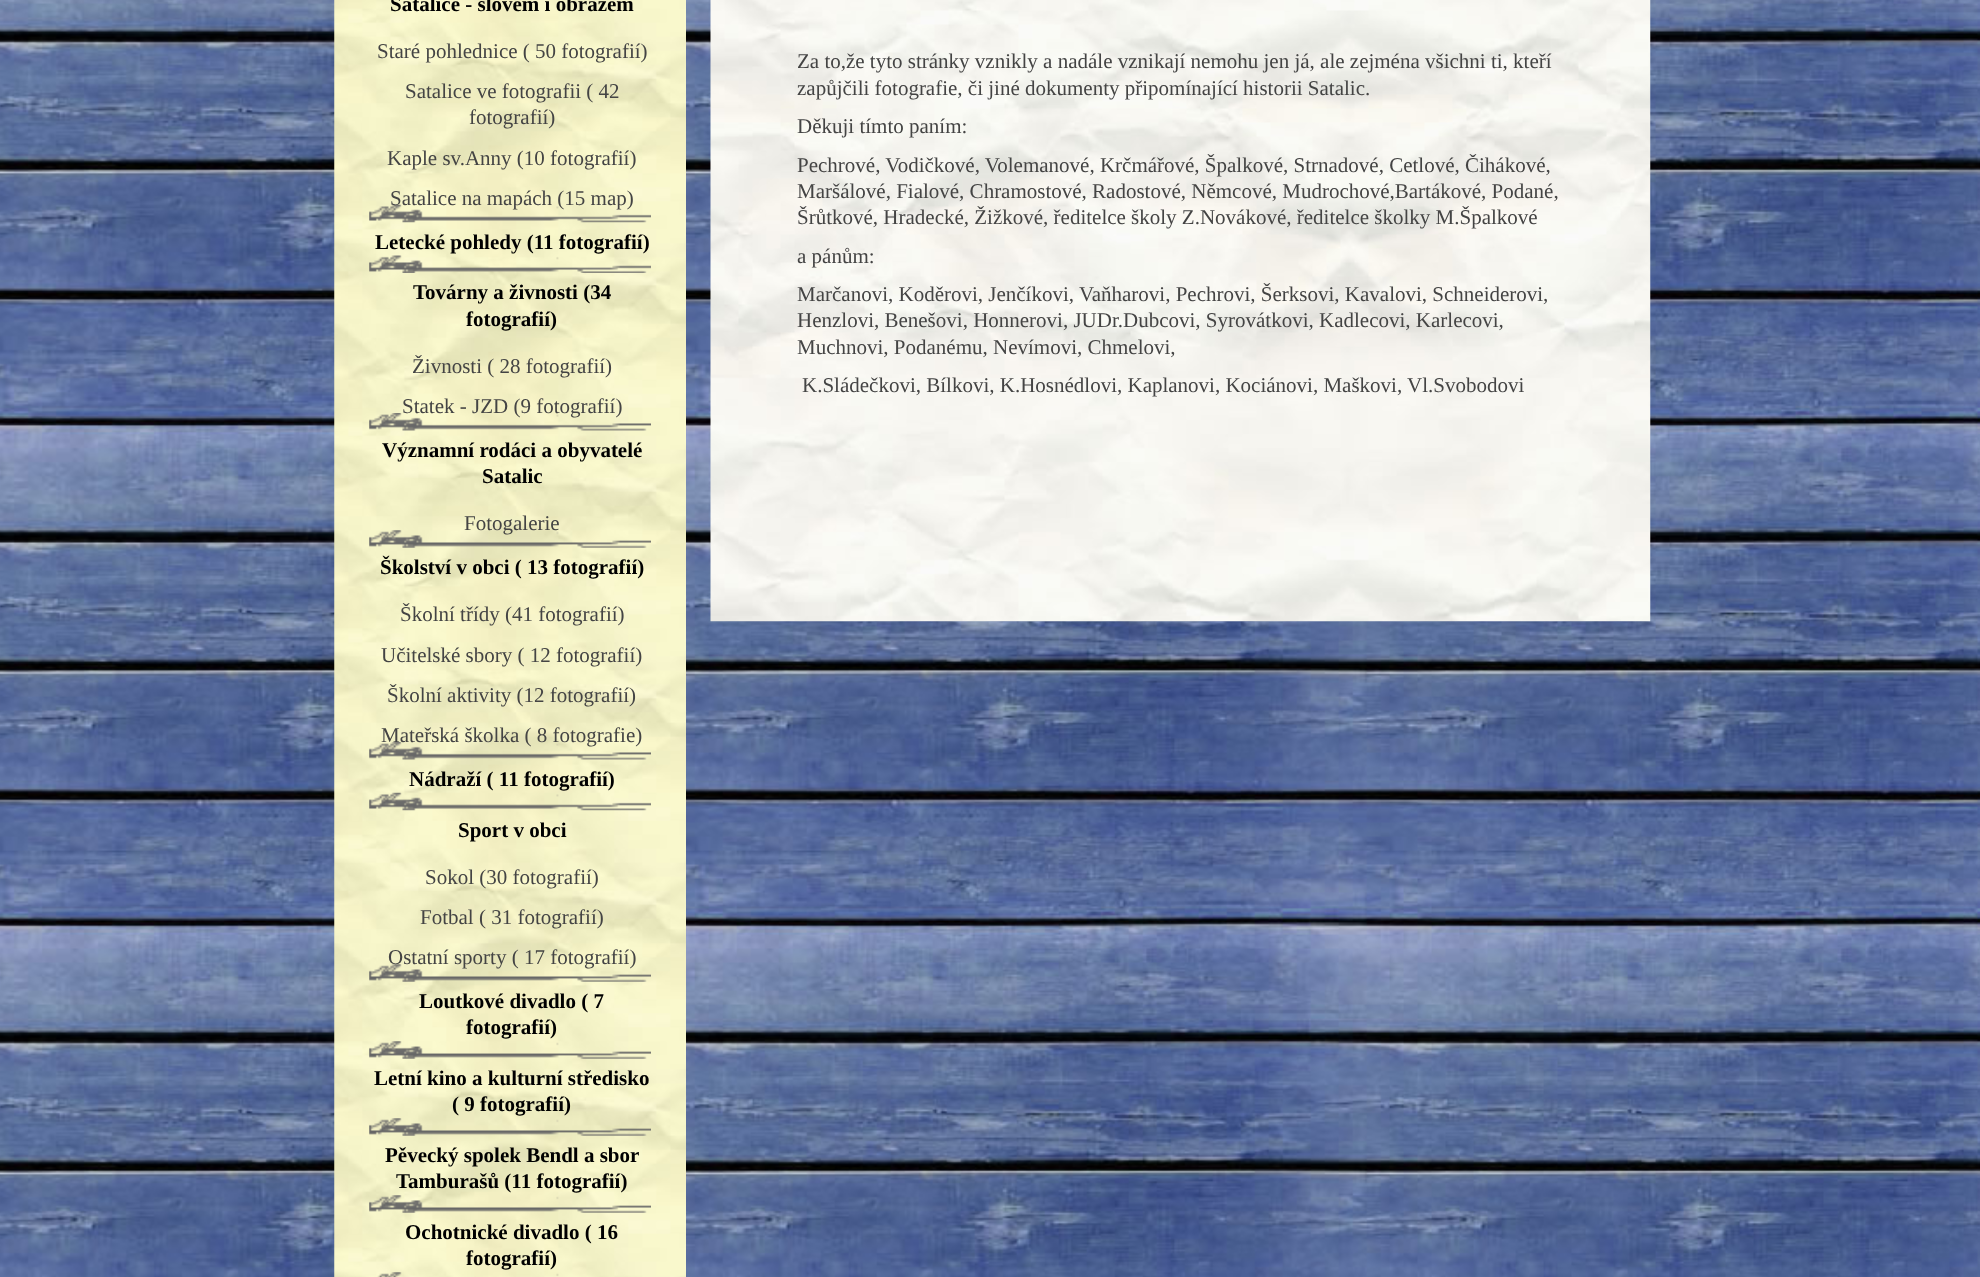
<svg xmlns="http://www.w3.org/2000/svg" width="1980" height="1277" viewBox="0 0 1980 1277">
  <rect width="100%" height="100%" fill="#fff"/>
  <image x="0" y="0" width="1980" height="1277" href="img/1.png"/>
  <image x="334" y="0" width="352" height="1277" href="img/2.png"/>
  <image x="369" y="204" width="282" height="19" href="img/3.png"/>
  <image x="369" y="255" width="282" height="18" href="img/4.png"/>
  <image x="369" y="413" width="282" height="18" href="img/5.png"/>
  <image x="369" y="530" width="282" height="18" href="img/6.png"/>
  <image x="369" y="742" width="282" height="18" href="img/7.png"/>
  <image x="369" y="792" width="282" height="19" href="img/8.png"/>
  <image x="369" y="964" width="282" height="18" href="img/9.png"/>
  <image x="369" y="1041" width="282" height="18" href="img/10.png"/>
  <image x="369" y="1118" width="282" height="18" href="img/11.png"/>
  <image x="369" y="1195" width="282" height="18" href="img/12.png"/>
  <image x="377" y="1272" width="182" height="5" href="img/13.png"/>
  <image x="710" y="0" width="941" height="622" href="img/14.png"/>
  <text x="390" y="11" font-family="Liberation Serif" font-size="21" font-weight="bold" fill="#000">Satalice - slovem i obrazem</text>
  <g font-family="Liberation Serif" font-size="21" fill="#444">
    <text x="377" y="58">Staré pohlednice ( 50 fotografií)</text>
    <text x="405" y="98">Satalice ve fotografii ( 42</text>
    <text x="469" y="124">fotografií)</text>
    <text x="387" y="165">Kaple sv.Anny (10 fotografií)</text>
    <text x="390" y="205">Satalice na mapách (15 map)</text>
  </g>
  <g font-family="Liberation Serif" font-size="21" font-weight="bold" fill="#000">
    <text x="375" y="249">Letecké pohledy (11 fotografií)</text>
    <text x="413" y="299">Továrny a živnosti (34</text>
    <text x="466" y="326">fotografií)</text>
  </g>
  <g font-family="Liberation Serif" font-size="21" fill="#444">
    <text x="412" y="373">Živnosti ( 28 fotografií)</text>
    <text x="402" y="413">Statek - JZD (9 fotografií)</text>
  </g>
  <g font-family="Liberation Serif" font-size="21" font-weight="bold" fill="#000">
    <text x="382" y="457">Významní rodáci a obyvatelé</text>
    <text x="482" y="483">Satalic</text>
  </g>
  <text x="464" y="530" font-family="Liberation Serif" font-size="21" fill="#444">Fotogalerie</text>
  <text x="380" y="574" font-family="Liberation Serif" font-size="21" font-weight="bold" fill="#000">Školství v obci ( 13 fotografií)</text>
  <g font-family="Liberation Serif" font-size="21" fill="#444">
    <text x="400" y="621">Školní třídy (41 fotografií)</text>
    <text x="381" y="662">Učitelské sbory ( 12 fotografií)</text>
    <text x="387" y="702">Školní aktivity (12 fotografií)</text>
    <text x="381" y="742">Mateřská školka ( 8 fotografie)</text>
  </g>
  <g font-family="Liberation Serif" font-size="21" font-weight="bold" fill="#000">
    <text x="409" y="786">Nádraží ( 11 fotografií)</text>
    <text x="458" y="837">Sport v obci</text>
  </g>
  <g font-family="Liberation Serif" font-size="21" fill="#444">
    <text x="425" y="884">Sokol (30 fotografií)</text>
    <text x="420" y="924">Fotbal ( 31 fotografií)</text>
    <text x="388" y="964">Ostatní sporty ( 17 fotografií)</text>
  </g>
  <g font-family="Liberation Serif" font-size="21" font-weight="bold" fill="#000">
    <text x="419" y="1008">Loutkové divadlo ( 7</text>
    <text x="466" y="1034">fotografií)</text>
    <text x="374" y="1085">Letní kino a kulturní středisko</text>
    <text x="452" y="1111">( 9 fotografií)</text>
    <text x="385" y="1162">Pěvecký spolek Bendl a sbor</text>
    <text x="396" y="1188">Tamburašů (11 fotografií)</text>
    <text x="405" y="1239">Ochotnické divadlo ( 16</text>
    <text x="466" y="1265">fotografií)</text>
  </g>
  <g font-family="Liberation Serif" font-size="21" fill="#444">
    <text x="797" y="68">Za to,že tyto stránky vznikly a nadále vznikají nemohu jen já, ale zejména všichni ti, kteří</text>
    <text x="797" y="95">zapůjčili fotografie, či jiné dokumenty připomínající historii Satalic.</text>
    <text x="797" y="133">Děkuji tímto paním:</text>
    <text x="797" y="172">Pechrové, Vodičkové, Volemanové, Krčmářové, Špalkové, Strnadové, Cetlové, Čihákové,</text>
    <text x="797" y="198">Maršálové, Fialové, Chramostové, Radostové, Němcové, Mudrochové,Bartákové, Podané,</text>
    <text x="797" y="224">Šrůtkové, Hradecké, Žižkové, ředitelce školy Z.Novákové, ředitelce školky M.Špalkové</text>
    <text x="797" y="263">a pánům:</text>
    <text x="797" y="301">Marčanovi, Koděrovi, Jenčíkovi, Vaňharovi, Pechrovi, Šerksovi, Kavalovi, Schneiderovi,</text>
    <text x="797" y="327">Henzlovi, Benešovi, Honnerovi, JUDr.Dubcovi, Syrovátkovi, Kadlecovi, Karlecovi,</text>
    <text x="797" y="354">Muchnovi, Podanému, Nevímovi, Chmelovi,</text>
    <text x="802" y="392">K.Sládečkovi, Bílkovi, K.Hosnédlovi, Kaplanovi, Kociánovi, Maškovi,</text>
    <text x="1407" y="392">Vl.Svobodovi</text>
  </g>
</svg>
